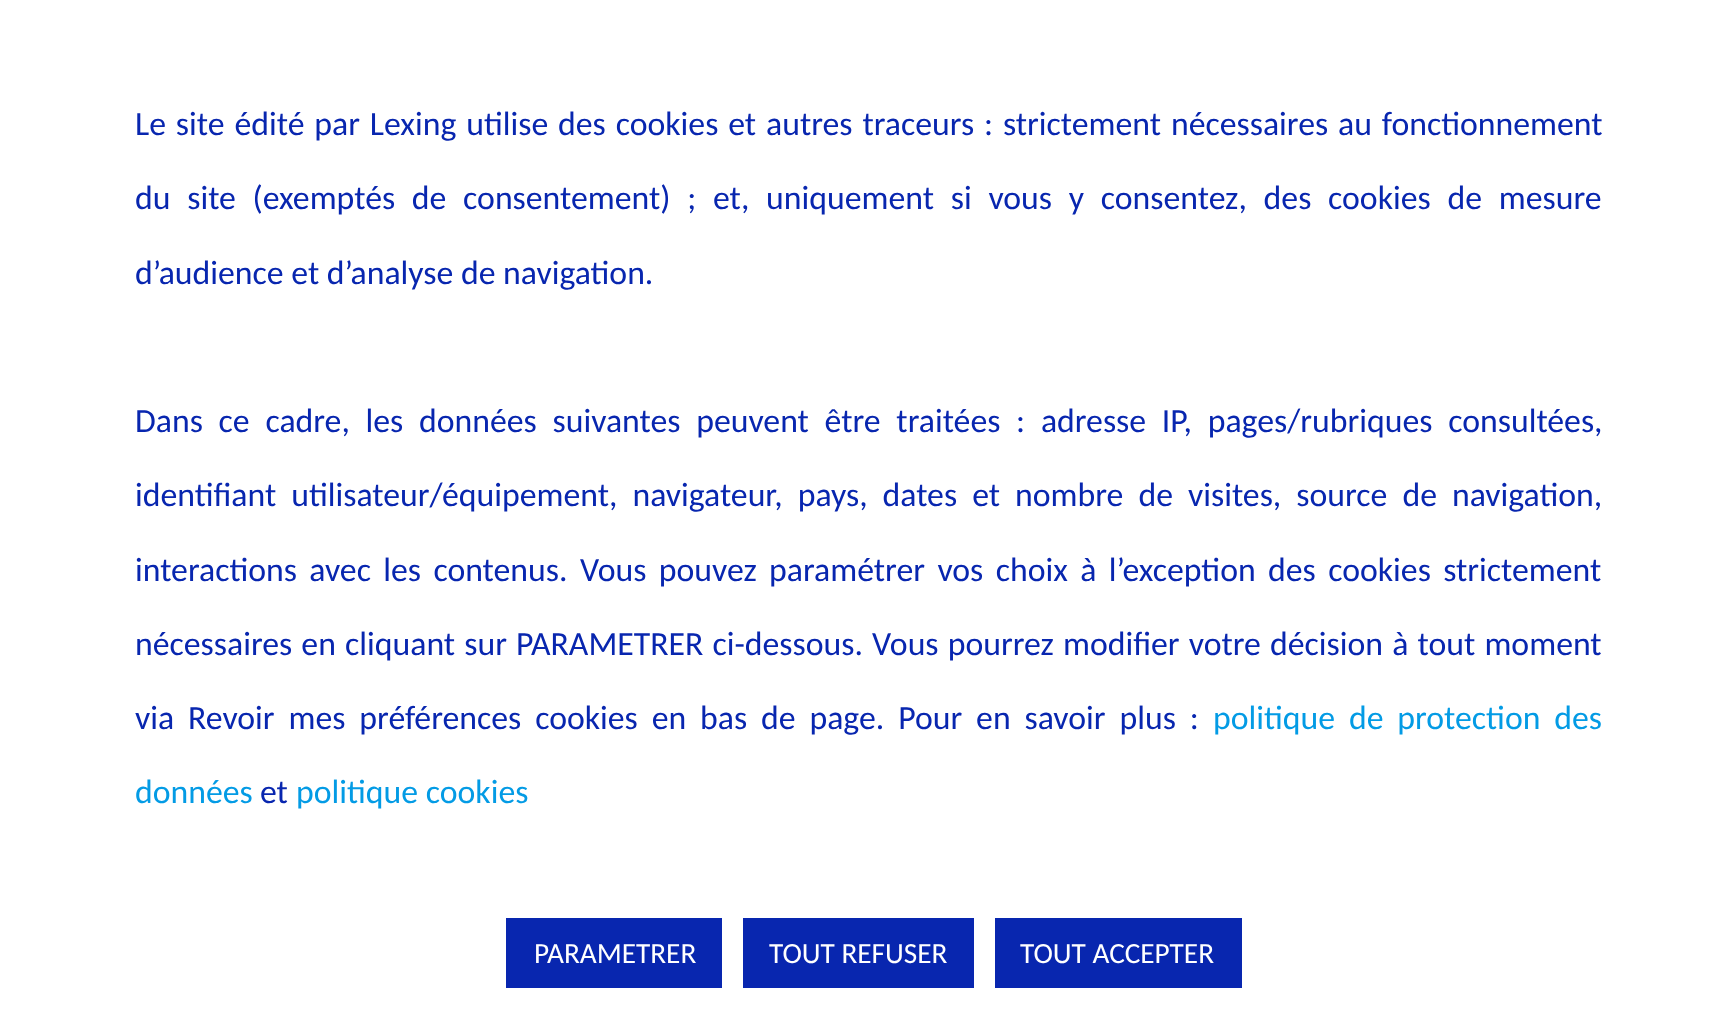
<svg xmlns="http://www.w3.org/2000/svg" width="1735" height="1016" viewBox="0 0 1735 1016">
  <rect width="100%" height="100%" fill="#fff"/>
  <path d="M506 918h216v70H506z" fill="#0826af"/>
  <path d="M743 918h231v70H743z" fill="#0826af"/>
  <path d="M995 918h247v70H995z" fill="#0826af"/>
  <g font-family="Carlito" font-size="33.75" fill="#0826af">
    <text x="135" y="135" word-spacing="2.25">Le site édité par Lexing utilise des cookies et autres traceurs : strictement nécessaires au fonctionnement</text>
    <text x="135" y="209" word-spacing="9.1">du site (exemptés de consentement) ; et, uniquement si vous y consentez, des cookies de mesure</text>
    <text x="135" y="284">d’audience et d’analyse de navigation.</text>
    <text x="135" y="432" word-spacing="8.1">Dans ce cadre, les données suivantes peuvent être traitées : adresse IP, pages/rubriques consultées,</text>
    <text x="135" y="506" word-spacing="7.4">identifiant utilisateur/équipement, navigateur, pays, dates et nombre de visites, source de navigation,</text>
    <text x="135" y="581" word-spacing="4.75">interactions avec les contenus. Vous pouvez paramétrer vos choix à l’exception des cookies strictement</text>
    <text x="135" y="655" word-spacing="1.5">nécessaires en cliquant sur PARAMETRER ci-dessous. Vous pourrez modifier votre décision à tout moment</text>
    <text x="135" y="729" word-spacing="6.25">via Revoir mes préférences cookies en bas de page. Pour en savoir plus :</text>
  </g>
  <g font-family="Carlito" font-size="33.75" fill="#039be5">
    <text x="1213" y="729" word-spacing="6.25">politique de protection des</text>
    <text x="135" y="803">données</text>
  </g>
  <text x="260" y="803" font-family="Carlito" font-size="33.75" fill="#0826af">et</text>
  <text x="296" y="803" font-family="Carlito" font-size="33.75" fill="#039be5">politique cookies</text>
  <g font-family="Carlito" font-size="29.25" fill="#fff">
    <text x="534" y="963">PARAMETRER</text>
    <text x="769" y="963">TOUT REFUSER</text>
    <text x="1020" y="963">TOUT ACCEPTER</text>
  </g>
</svg>
